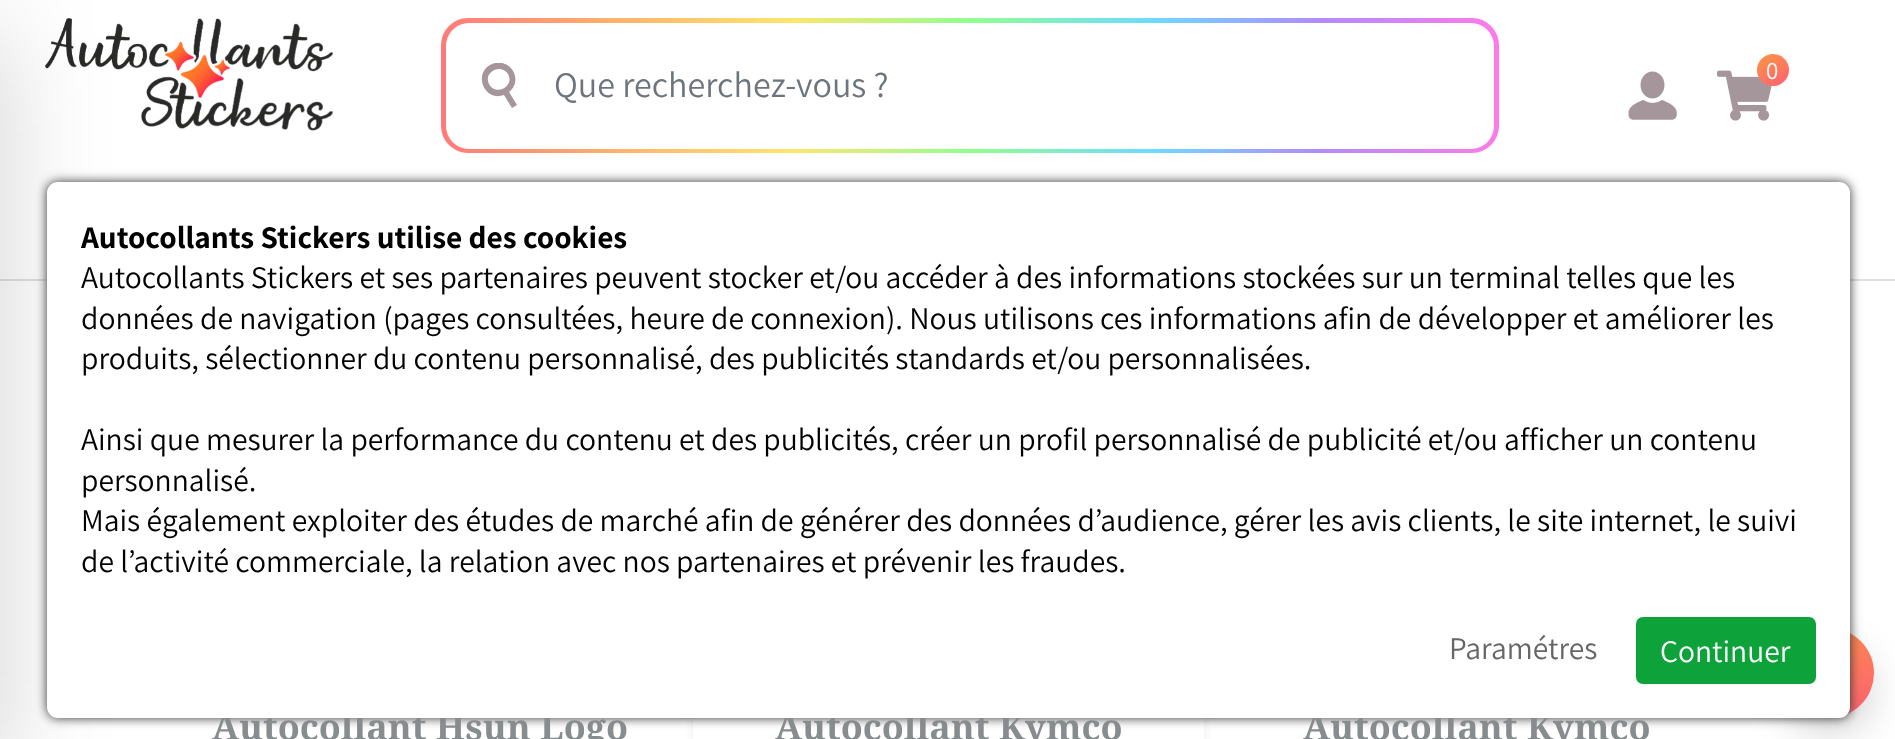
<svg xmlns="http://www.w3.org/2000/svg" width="1895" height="739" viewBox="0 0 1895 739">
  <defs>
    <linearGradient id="g1" gradientUnits="userSpaceOnUse" x1="441" y1="86" x2="1499" y2="85"><stop offset="0" stop-color="#ff7a7a"/><stop offset="0.17" stop-color="#ffb36b"/><stop offset="0.33" stop-color="#ffe66b"/><stop offset="0.5" stop-color="#90ff90"/><stop offset="0.67" stop-color="#6bdcff"/><stop offset="0.83" stop-color="#b28bff"/><stop offset="1" stop-color="#ff7ae6"/></linearGradient>
    <clipPath id="clip1"><path d="M477 63h45v45H477z"/></clipPath>
    <linearGradient id="g2" gradientUnits="userSpaceOnUse" x1="1784" y1="88" x2="1762" y2="51"><stop offset="0" stop-color="#fe5f75"/><stop offset="1" stop-color="#fc9840"/></linearGradient>
    <linearGradient id="g3" gradientUnits="userSpaceOnUse" x1="1860" y1="726" x2="1799" y2="620"><stop offset="0" stop-color="#fe5f75"/><stop offset="1" stop-color="#fc9840"/></linearGradient>
  </defs>
  <rect width="100%" height="100%" fill="#fff"/>
  <path d="M0 279h1895v2H0z" fill="#dee2e6"/>
  <image x="45" y="18" width="289" height="113" href="img/1.png"/>
  <path d="M-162 36h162v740H-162z" fill="#0000002e" filter="blur(54px)"/>
  <rect x="441" y="18" width="1058" height="135" rx="27" fill="url(#g1)"/>
  <rect x="446" y="23" width="1048" height="126" rx="23" fill="#fff"/>
  <g clip-path="url(#clip1)">
    <path d="M490 65C473 75 485 102 504 95L512 108L517 105L509 92C525 79 508 55 490 65ZM508 74C515 86 496 97 489 84C483 72 501 63 508 74Z" fill="#a4969b"/>
  </g>
  <image x="1628" y="71" width="49" height="49" href="img/2.png"/>
  <image x="1717" y="70" width="55" height="51" href="img/3.png"/>
  <circle cx="1773" cy="70" r="16" fill="url(#g2)"/>
  <rect x="1784" y="646" width="90" height="90" rx="45" fill="#00000026" filter="blur(18px)"/>
  <circle cx="1829" cy="673" r="45" fill="url(#g3)"/>
  <rect x="693" y="459" width="511" height="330" rx="36" fill="#00000012" filter="blur(4.5px)"/>
  <path d="M693 718h511v21H693z" fill="#fff"/>
  <rect x="47" y="182" width="1803" height="536" rx="11" fill="#313131" filter="blur(5.5px)"/>
  <text x="554" y="97" font-family="Assistant" font-size="36" fill="#6c757d">Que recherchez-vous ?</text>
  <text x="1766" y="79" font-family="Assistant" font-size="25" fill="#fff">0</text>
  <g font-family="Noto Serif Vithkuqi" font-size="36" font-weight="bold" fill="#878c8f">
    <text x="212" y="740">Autocollant Hsun Logo</text>
    <text x="775" y="740">Autocollant Kymco</text>
    <text x="1303" y="740">Autocollant Kymco</text>
  </g>
  <rect x="47" y="182" width="1803" height="536" rx="11" fill="#fff"/>
  <text x="81" y="248" font-family="Assistant" font-size="31.5" font-weight="bold" fill="#000">Autocollants Stickers utilise des cookies</text>
  <g font-family="Assistant" font-size="31.5" fill="#000">
    <text x="81" y="572">de l’activité commerciale, la relation avec nos partenaires et prévenir les fraudes.</text>
    <text x="81" y="531">Mais également exploiter des études de marché afin de générer des données d’audience, gérer les avis clients, le site internet, le suivi</text>
    <text x="81" y="491">personnalisé.</text>
    <text x="81" y="450">Ainsi que mesurer la performance du contenu et des publicités, créer un profil personnalisé de publicité et/ou afficher un contenu</text>
    <text x="81" y="369">produits, sélectionner du contenu personnalisé, des publicités standards et/ou personnalisées.</text>
    <text x="81" y="329">données de navigation (pages consultées, heure de connexion). Nous utilisons ces informations afin de développer et améliorer les</text>
    <text x="81" y="288">Autocollants Stickers et ses partenaires peuvent stocker et/ou accéder à des informations stockées sur un terminal telles que les</text>
  </g>
  <text x="1449" y="659" font-family="Assistant" font-size="31.5" fill="#666">Paramétres</text>
  <rect x="1637" y="618" width="178" height="65" rx="6" fill="#0ea23b" stroke="#0ea23b" stroke-width="2"/>
  <text x="1660" y="662" font-family="Assistant" font-size="31.5" fill="#fff">Continuer</text>
</svg>
